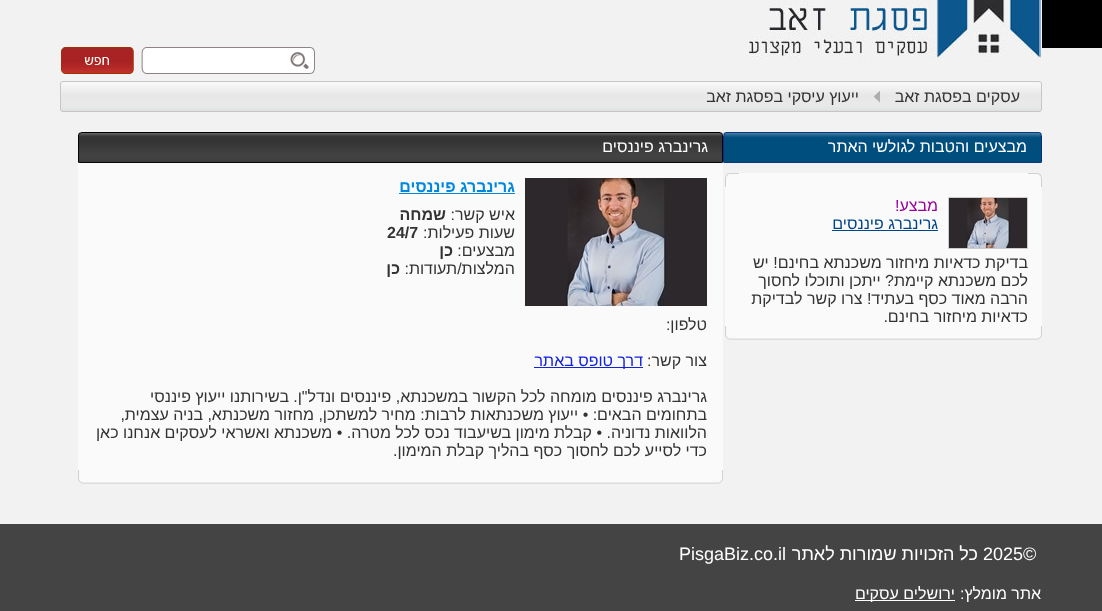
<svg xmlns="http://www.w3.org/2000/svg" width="1102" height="611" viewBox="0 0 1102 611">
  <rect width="100%" height="100%" fill="#f2f2f2"/>
  <path d="M1042 0h60v48H1042z" fill="#000"/>
  <image x="749" y="0" width="293" height="59" href="img/1.png"/>
  <image x="141" y="47" width="174" height="27" href="img/2.png"/>
  <image x="61" y="47" width="73" height="27" href="img/3.png"/>
  <image x="1027" y="81" width="15" height="31" href="img/4.png"/>
  <image x="75" y="81" width="952" height="31" href="img/5.png"/>
  <image x="874" y="91" width="6" height="12" href="img/6.png"/>
  <image x="60" y="81" width="15" height="31" href="img/7.png"/>
  <image x="1027" y="132" width="15" height="31" href="img/8.png"/>
  <image x="738" y="132" width="289" height="31" href="img/9.png"/>
  <image x="723" y="132" width="15" height="31" href="img/10.png"/>
  <image x="1028" y="173" width="14" height="14" href="img/11.png"/>
  <path d="M739 173h289v14H739z" fill="#fafafa"/>
  <image x="725" y="173" width="14" height="14" href="img/12.png"/>
  <path d="M1028 187h14v139H1028z" fill="#fafafa"/>
  <path d="M725 187h303v139H725z" fill="#fafafa"/>
  <path d="M948.5 197.5h79v51H948.5z" fill="none" stroke="#ccc"/>
  <image x="949" y="198" width="78" height="50" href="img/13.png"/>
  <path d="M832 230h106v1H832z" fill="#048"/>
  <image x="1028" y="326" width="14" height="14" href="img/14.png"/>
  <image x="739" y="326" width="289" height="14" href="img/15.png"/>
  <image x="725" y="326" width="14" height="14" href="img/16.png"/>
  <image x="708" y="132" width="15" height="31" href="img/17.png"/>
  <image x="93" y="132" width="615" height="31" href="img/18.png"/>
  <image x="78" y="132" width="15" height="31" href="img/19.png"/>
  <path d="M709 163h14v307H709z" fill="#fafafa"/>
  <path d="M78 163h631v307H78z" fill="#fafafa"/>
  <image x="525" y="178" width="182" height="128" href="img/20.png"/>
  <path d="M399 193h116v1H399z" fill="#08d"/>
  <path d="M534 367h109v1H534z" fill="#12d"/>
  <image x="709" y="470" width="14" height="14" href="img/14.png"/>
  <image x="92" y="470" width="617" height="14" href="img/21.png"/>
  <image x="78" y="470" width="14" height="14" href="img/16.png"/>
  <path d="M0 524h1102v87H0z" fill="#444"/>
  <path d="M855 600h100v1H855z" fill="#fff"/>
  <g font-family="Liberation Sans" font-size="16" direction="rtl" fill="#333">
    <text x="1020" y="102">עסקים בפסגת זאב</text>
    <text x="859" y="102">ייעוץ עיסקי בפסגת זאב</text>
  </g>
  <text x="1027" y="152" font-family="Liberation Sans" font-size="16" direction="rtl" fill="#fff">מבצעים והטבות לגולשי האתר</text>
  <text x="938" y="211" font-family="Liberation Sans" font-size="16" direction="rtl" fill="#909">מבצע!</text>
  <text x="938" y="229" font-family="Liberation Sans" font-size="16" direction="rtl" fill="#048">גרינברג פיננסים</text>
  <g font-family="Liberation Sans" font-size="16" direction="rtl" fill="#333">
    <text x="1028" y="268">בדיקת כדאיות מיחזור משכנתא בחינם! יש</text>
    <text x="1028" y="286">לכם משכנתא קיימת? ייתכן ותוכלו לחסוך</text>
    <text x="1028" y="304">הרבה מאוד כסף בעתיד! צרו קשר לבדיקת</text>
    <text x="1028" y="322">כדאיות מיחזור בחינם.</text>
  </g>
  <text x="708" y="152" font-family="Liberation Sans" font-size="16" direction="rtl" fill="#fff">גרינברג פיננסים</text>
  <text x="515" y="192" font-family="Liberation Sans" font-size="16" font-weight="bold" direction="rtl" fill="#08d">גרינברג פיננסים</text>
  <text x="515" y="220" font-family="Liberation Sans" font-size="16" direction="rtl" fill="#333">איש קשר:</text>
  <text x="446" y="220" font-family="Liberation Sans" font-size="16" font-weight="bold" direction="rtl" fill="#333">שמחה</text>
  <text x="515" y="238" font-family="Liberation Sans" font-size="16" direction="rtl" fill="#333">שעות פעילות:</text>
  <text x="387" y="238" font-family="Liberation Sans" font-size="16" font-weight="bold" fill="#333">24/7</text>
  <text x="515" y="256" font-family="Liberation Sans" font-size="16" direction="rtl" fill="#333">מבצעים:</text>
  <text x="453" y="256" font-family="Liberation Sans" font-size="16" font-weight="bold" direction="rtl" fill="#333">כן</text>
  <text x="515" y="274" font-family="Liberation Sans" font-size="16" direction="rtl" fill="#333">המלצות/תעודות:</text>
  <text x="400" y="274" font-family="Liberation Sans" font-size="16" font-weight="bold" direction="rtl" fill="#333">כן</text>
  <g font-family="Liberation Sans" font-size="16" direction="rtl" fill="#333">
    <text x="707" y="330">טלפון:</text>
    <text x="707" y="366">צור קשר:</text>
  </g>
  <text x="643" y="366" font-family="Liberation Sans" font-size="16" direction="rtl" fill="#12d">דרך טופס באתר</text>
  <g font-family="Liberation Sans" font-size="16" direction="rtl" fill="#333">
    <text x="707" y="402">גרינברג פיננסים מומחה לכל הקשור במשכנתא, פיננסים ונדל"ן.</text>
    <text x="289" y="402">בשירותנו ייעוץ פיננסי</text>
    <text x="707" y="420">בתחומים הבאים: • ייעוץ משכנתאות לרבות: מחיר למשתכן, מחזור משכנתא, בניה עצמית,</text>
    <text x="707" y="438">הלוואות נדוניה. • קבלת מימון בשיעבוד נכס לכל מטרה. • משכנתא ואשראי לעסקים אנחנו כאן</text>
    <text x="707" y="456">כדי לסייע לכם לחסוך כסף בהליך קבלת המימון.</text>
  </g>
  <text x="983" y="560" font-family="Liberation Sans" font-size="18" fill="#fff">2025©</text>
  <text x="978" y="560" font-family="Liberation Sans" font-size="18" direction="rtl" fill="#fff">כל הזכויות שמורות לאתר</text>
  <text x="679" y="560" font-family="Liberation Sans" font-size="18" fill="#fff">PisgaBiz.co.il</text>
  <g font-family="Liberation Sans" font-size="16" direction="rtl" fill="#fff">
    <text x="1041" y="599">אתר מומלץ:</text>
    <text x="955" y="599">ירושלים עסקים</text>
  </g>
</svg>
